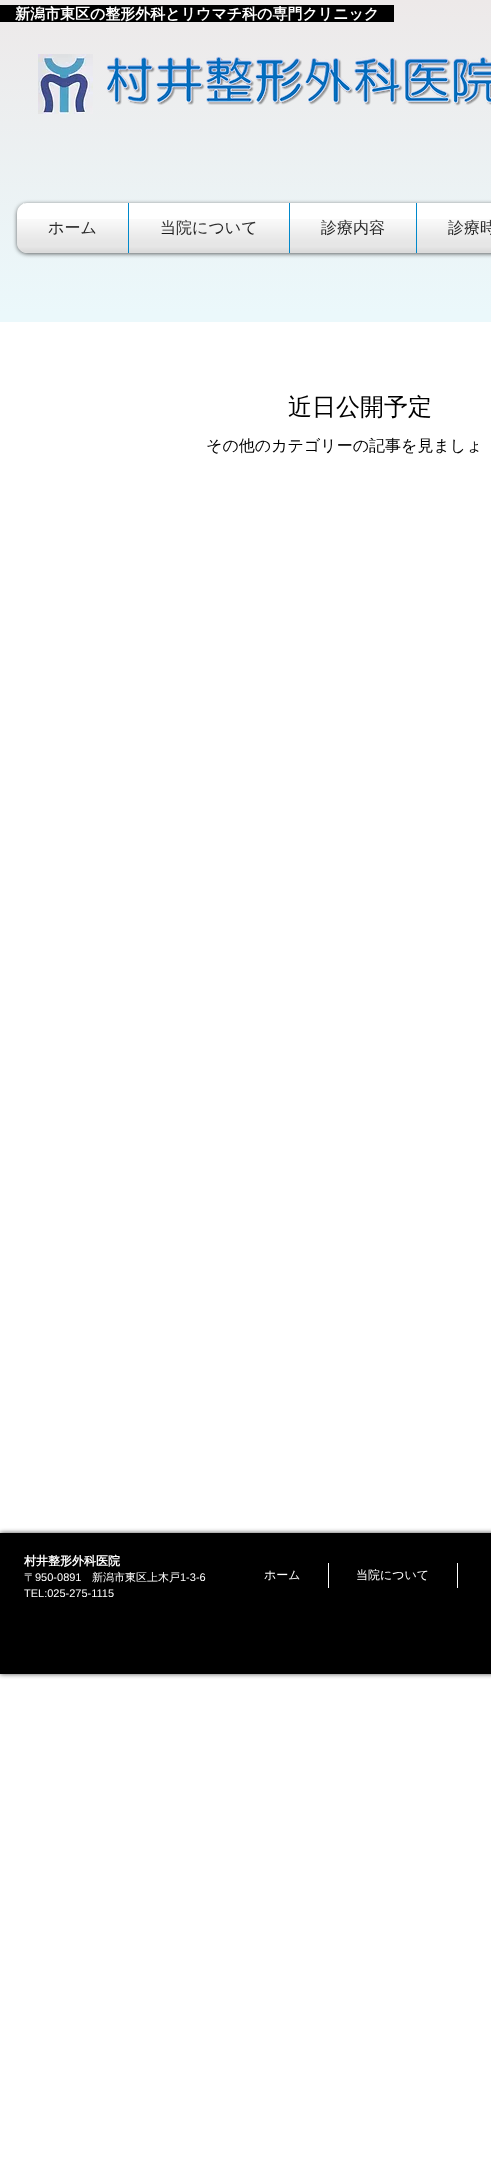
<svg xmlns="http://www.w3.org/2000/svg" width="491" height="2157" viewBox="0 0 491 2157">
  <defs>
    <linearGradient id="g1" gradientUnits="userSpaceOnUse" x1="490" y1="0" x2="490" y2="322"><stop offset="0" stop-color="#ede9e9"/><stop offset="0.97" stop-color="#ebf8fb"/></linearGradient>
  </defs>
  <rect width="100%" height="100%" fill="#fff"/>
  <path d="M0 0h491v322H0z" fill="url(#g1)"/>
  <path d="M0 5h394v17H0z" fill="#000"/>
  <image x="38" y="54" width="55" height="60" href="img/1.png"/>
  <image x="106" y="56" width="385" height="50" href="img/2.png"/>
  <rect x="17" y="204" width="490" height="50" rx="10" fill="#00000099" filter="blur(2px)"/>
  <path d="M23 203h1v1H23z" fill="#e7ebec"/>
  <image x="17" y="243" width="10" height="10" href="img/3.png"/>
  <path d="M27 203H128V253H27C21.5 253 17 248.5 17 243V213C17 207.5 21.5 203 27 203Z" fill="#fff"/>
  <path d="M129 203h160v50H129z" fill="#fff"/>
  <path d="M128 203h1v50H128z" fill="#0088cb"/>
  <path d="M290 203h126v50H290z" fill="#fff"/>
  <path d="M289 203h1v50H289z" fill="#0088cb"/>
  <path d="M417 203h74v50H417z" fill="#fff"/>
  <path d="M416 203h1v50H416z" fill="#0088cb"/>
  <path d="M0 1533h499v141H0z" fill="#000000b3" filter="blur(2.5px)"/>
  <path d="M0 1533h491v141H0z" fill="#000"/>
  <path d="M328 1563h1v25H328z" fill="#fff"/>
  <path d="M457 1563h1v25H457z" fill="#fff"/>
  <text x="15" y="19" font-family="WenQuanYi Zen Hei" font-size="15" font-weight="bold" fill="#fff">新潟市東区の整形外科とリウマチ科の専門クリニック</text>
  <text x="48" y="233" font-family="WenQuanYi Zen Hei" font-size="16" font-weight="500" fill="#000">ホーム</text>
  <image x="49" y="221" width="46" height="14" href="img/4.png"/>
  <image x="17" y="219" width="111" height="34" href="img/5.png"/>
  <text x="160" y="233" font-family="WenQuanYi Zen Hei" font-size="16" font-weight="500" fill="#000">当院について</text>
  <image x="161" y="219" width="95" height="16" href="img/6.png"/>
  <image x="129" y="219" width="160" height="34" href="img/7.png"/>
  <text x="321" y="233" font-family="WenQuanYi Zen Hei" font-size="16" font-weight="500" fill="#000">診療内容</text>
  <image x="321" y="219" width="63" height="16" href="img/8.png"/>
  <image x="290" y="219" width="126" height="34" href="img/9.png"/>
  <text x="448" y="233" font-family="WenQuanYi Zen Hei" font-size="16" font-weight="500" fill="#000">診療時</text>
  <image x="448" y="219" width="43" height="16" href="img/10.png"/>
  <image x="417" y="219" width="74" height="34" href="img/11.png"/>
  <text x="288" y="415" font-family="WenQuanYi Zen Hei" font-size="24" font-weight="500" fill="#000">近日公開予定</text>
  <text x="206" y="451" font-family="WenQuanYi Zen Hei" font-size="16" font-weight="500" fill="#000">その他のカテゴリーの記事を見ましょ</text>
  <text x="24" y="1565" font-family="WenQuanYi Zen Hei" font-size="12" font-weight="bold" fill="#fff">村井整形外科医院</text>
  <text x="24" y="1581" font-family="WenQuanYi Zen Hei" font-size="11" font-weight="500" fill="#fff">〒</text>
  <text x="35" y="1581" font-family="Liberation Sans" font-size="11" fill="#fff">950-0891</text>
  <text x="92" y="1581" font-family="WenQuanYi Zen Hei" font-size="11" font-weight="500" fill="#fff">新潟市東区上木戸</text>
  <g font-family="Liberation Sans" font-size="11" fill="#fff">
    <text x="180" y="1581">1-3-6</text>
    <text x="24" y="1597">TEL:025-275-1115</text>
  </g>
  <g font-family="WenQuanYi Zen Hei" font-size="12" font-weight="500" fill="#fff">
    <text x="264" y="1579">ホーム</text>
    <text x="356" y="1579">当院について</text>
  </g>
</svg>
